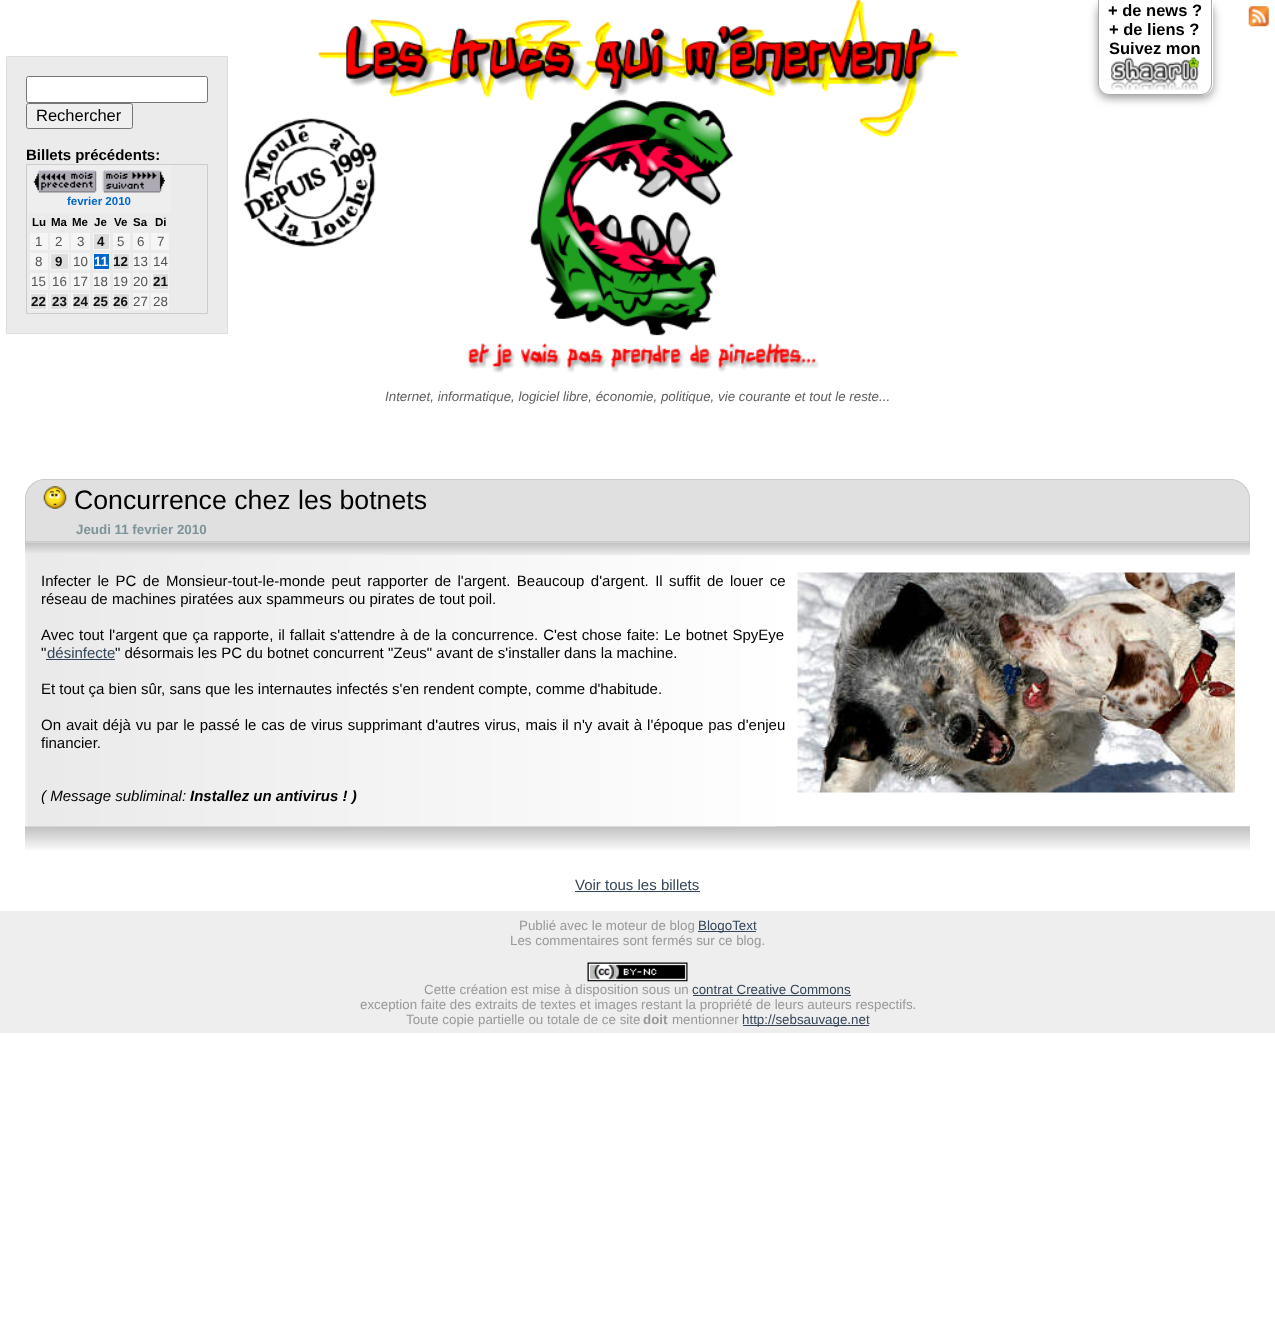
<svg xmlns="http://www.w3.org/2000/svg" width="1275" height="1318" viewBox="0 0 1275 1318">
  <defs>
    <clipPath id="clip1"><path d="M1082 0H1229V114H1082ZM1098 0H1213V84C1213 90 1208 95 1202 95H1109C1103 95 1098 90 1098 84Z" clip-rule="evenodd"/></clipPath>
  </defs>
  <rect width="100%" height="100%" fill="#fff"/>
  <g clip-path="url(#clip1)">
    <rect x="1098" y="3" width="115" height="95" rx="11" fill="#33333380" filter="blur(5px)"/>
  </g>
  <path d="M1098 0H1212V84C1212 90 1207 95 1201 95H1109C1103 95 1098 90 1098 84ZM1099 0H1211V84C1211 89 1207 94 1201 94H1109C1103 94 1099 89 1099 84Z" fill="#aaa" fill-rule="evenodd"/>
  <image x="1111" y="57" width="88" height="33" href="img/1.png"/>
  <image x="1248" y="6" width="21" height="21" href="img/2.png"/>
  <path d="M6.5 56.5h221v277H6.5z" fill="#ebebeb" stroke="#ddd"/>
  <rect x="26.5" y="76.5" width="181" height="26" rx="2" fill="#fff" stroke="#767676"/>
  <rect x="26.5" y="103.5" width="106" height="25" rx="2" fill="#efefef" stroke="#767676"/>
  <path d="M26.5 164.5h181v149H26.5z" fill="none" stroke="#ccc"/>
  <path d="M28 165h143v48H28z" fill="#eee"/>
  <image x="33" y="170" width="64" height="23" href="img/3.png"/>
  <image x="102" y="170" width="63" height="23" href="img/4.png"/>
  <path d="M30 233h18v17H30z" fill="#f5f5f5"/>
  <path d="M50 233h19v17H50z" fill="#f5f5f5"/>
  <path d="M71 233h19v17H71z" fill="#f5f5f5"/>
  <path d="M93 233h17v17H93z" fill="#f5f5f5"/>
  <path d="M94 234h15v15H94z" fill="#ddd"/>
  <path d="M113 233h17v17H113z" fill="#f5f5f5"/>
  <path d="M133 233h16v17H133z" fill="#f5f5f5"/>
  <path d="M151 233h18v17H151z" fill="#f5f5f5"/>
  <path d="M30 253h18v17H30z" fill="#f5f5f5"/>
  <path d="M50 253h19v17H50z" fill="#f5f5f5"/>
  <path d="M51 254h17v15H51z" fill="#ddd"/>
  <path d="M71 253h19v17H71z" fill="#f5f5f5"/>
  <path d="M93 253h17v17H93z" fill="#f5f5f5"/>
  <path d="M94 254h15v15H94z" fill="#06c"/>
  <path d="M113 253h17v17H113z" fill="#f5f5f5"/>
  <path d="M114 254h15v15H114z" fill="#ddd"/>
  <path d="M133 253h16v17H133z" fill="#f5f5f5"/>
  <path d="M151 253h18v17H151z" fill="#f5f5f5"/>
  <path d="M30 273h18v17H30z" fill="#f5f5f5"/>
  <path d="M50 273h19v17H50z" fill="#f5f5f5"/>
  <path d="M71 273h19v17H71z" fill="#f5f5f5"/>
  <path d="M93 273h17v17H93z" fill="#f5f5f5"/>
  <path d="M113 273h17v17H113z" fill="#f5f5f5"/>
  <path d="M133 273h16v17H133z" fill="#f5f5f5"/>
  <path d="M151 273h18v17H151z" fill="#f5f5f5"/>
  <path d="M153 274h15v15H153z" fill="#ddd"/>
  <path d="M30 293h18v17H30z" fill="#f5f5f5"/>
  <path d="M31 294h15v15H31z" fill="#ddd"/>
  <path d="M50 293h19v17H50z" fill="#f5f5f5"/>
  <path d="M51 294h17v15H51z" fill="#ddd"/>
  <path d="M71 293h19v17H71z" fill="#f5f5f5"/>
  <path d="M73 294h16v15H73z" fill="#ddd"/>
  <path d="M93 293h17v17H93z" fill="#f5f5f5"/>
  <path d="M94 294h15v15H94z" fill="#ddd"/>
  <path d="M113 293h17v17H113z" fill="#f5f5f5"/>
  <path d="M114 294h15v15H114z" fill="#ddd"/>
  <path d="M133 293h16v17H133z" fill="#f5f5f5"/>
  <path d="M151 293h18v17H151z" fill="#f5f5f5"/>
  <image x="318" y="0" width="640" height="373" href="img/6.png"/>
  <image x="243" y="118" width="134" height="129" href="img/5.png"/>
  <path d="M45 479H1230C1241 479 1250 488 1250 499V521H25V499C25 488 34 479 45 479Z" fill="#e0e0e0"/>
  <path d="M45 479H1230C1241 479 1250 488 1250 499V521H25V499C25 488 34 479 45 479ZM45 480H1230C1240 480 1249 488 1249 499V521H26V499C26 488 35 480 45 480Z" fill="#ccc" fill-rule="evenodd"/>
  <image x="43" y="486" width="24" height="23" href="img/7.png"/>
  <path d="M26 521h1223v22H26z" fill="#e0e0e0"/>
  <path d="M1249 521h1v22H1249z" fill="#ccc"/>
  <path d="M25 541h1225v1H25z" fill="#ccc"/>
  <path d="M25 521h1v22H25z" fill="#ccc"/>
  <image x="25" y="542" width="1225" height="13" href="img/8.png"/>
  <image x="25" y="826" width="1225" height="24" href="img/11.png"/>
  <image x="26" y="555" width="750" height="272" href="img/9.png"/>
  <path d="M25 555h1v271H25z" fill="#efefef"/>
  <image x="797" y="572" width="438" height="221" href="img/10.png"/>
  <path d="M46 659h69v1H46z" fill="#344658"/>
  <path d="M575 891h125v1H575z" fill="#344658"/>
  <path d="M0 911h1275v122H0z" fill="#eee"/>
  <path d="M698 931h58v1H698z" fill="#344658"/>
  <image x="587" y="962" width="101" height="20" href="img/12.png"/>
  <path d="M693 995h158v1H693z" fill="#344658"/>
  <path d="M743 1025h126v1H743z" fill="#344658"/>
  <g font-family="Liberation Sans" font-size="16.5" font-weight="bold" fill="#000">
    <text x="1108" y="16">+ de news ?</text>
    <text x="1109" y="35">+ de liens ?</text>
    <text x="1109" y="54">Suivez mon</text>
  </g>
  <text x="36" y="121" font-family="Liberation Sans" font-size="16.5" fill="#000">Rechercher</text>
  <text x="26" y="160" font-family="Liberation Sans" font-size="15" font-weight="bold" fill="#000">Billets précédents:</text>
  <text x="67" y="205" font-family="Liberation Sans" font-size="11.5" font-weight="bold" fill="#06c">fevrier 2010</text>
  <g font-family="Liberation Sans" font-size="11.5" font-weight="bold" fill="#000">
    <text x="32" y="226">Lu</text>
    <text x="51" y="226">Ma</text>
    <text x="72" y="226">Me</text>
    <text x="94" y="226">Je</text>
    <text x="114" y="226">Ve</text>
    <text x="133" y="226">Sa</text>
    <text x="155" y="226">Di</text>
  </g>
  <g font-family="Liberation Sans" font-size="13.35" fill="#555">
    <text x="35" y="246">1</text>
    <text x="55" y="246">2</text>
    <text x="77" y="246">3</text>
  </g>
  <text x="97" y="246" font-family="Liberation Sans" font-size="13.35" font-weight="bold" fill="#111">4</text>
  <g font-family="Liberation Sans" font-size="13.35" fill="#555">
    <text x="117" y="246">5</text>
    <text x="137" y="246">6</text>
    <text x="157" y="246">7</text>
    <text x="35" y="266">8</text>
  </g>
  <text x="55" y="266" font-family="Liberation Sans" font-size="13.35" font-weight="bold" fill="#111">9</text>
  <text x="73" y="266" font-family="Liberation Sans" font-size="13.35" fill="#555">10</text>
  <text x="94" y="266" font-family="Liberation Sans" font-size="13.35" font-weight="bold" fill="#fff">11</text>
  <text x="113" y="266" font-family="Liberation Sans" font-size="13.35" font-weight="bold" fill="#111">12</text>
  <g font-family="Liberation Sans" font-size="13.35" fill="#555">
    <text x="133" y="266">13</text>
    <text x="153" y="266">14</text>
    <text x="31" y="286">15</text>
    <text x="52" y="286">16</text>
    <text x="73" y="286">17</text>
    <text x="93" y="286">18</text>
    <text x="113" y="286">19</text>
    <text x="133" y="286">20</text>
  </g>
  <g font-family="Liberation Sans" font-size="13.35" font-weight="bold" fill="#111">
    <text x="153" y="286">21</text>
    <text x="31" y="306">22</text>
    <text x="52" y="306">23</text>
    <text x="73" y="306">24</text>
    <text x="93" y="306">25</text>
    <text x="113" y="306">26</text>
  </g>
  <g font-family="Liberation Sans" font-size="13.35" fill="#555">
    <text x="133" y="306">27</text>
    <text x="153" y="306">28</text>
  </g>
  <text x="385" y="401" font-family="Liberation Sans" font-size="13.35" font-style="italic" fill="#5f5f5f">Internet, informatique, logiciel libre, économie, politique, vie courante et tout le reste...</text>
  <text x="74" y="509" font-family="Liberation Sans" font-size="26.7" fill="#000">Concurrence chez les botnets</text>
  <text x="76" y="534" font-family="Liberation Sans" font-size="13.35" font-weight="bold" fill="#7c9399">Jeudi 11 fevrier 2010</text>
  <g font-family="Liberation Sans" font-size="15" fill="#000">
    <text x="41" y="586" word-spacing="2.25">Infecter le PC de Monsieur-tout-le-monde peut rapporter de l'argent. Beaucoup d'argent. Il suffit de louer ce</text>
    <text x="41" y="604">réseau de machines piratées aux spammeurs ou pirates de tout poil.</text>
    <text x="41" y="640" word-spacing="0.75">Avec tout l'argent que ça rapporte, il fallait s'attendre à de la concurrence. C'est chose faite: Le botnet SpyEye</text>
    <text x="41" y="658">"</text>
  </g>
  <text x="47" y="658" font-family="Liberation Sans" font-size="15" fill="#344658">désinfecte</text>
  <g font-family="Liberation Sans" font-size="15" fill="#000">
    <text x="115" y="658">" désormais les PC du botnet concurrent "Zeus" avant de s'installer dans la machine.</text>
    <text x="41" y="694">Et tout ça bien sûr, sans que les internautes infectés s'en rendent compte, comme d'habitude.</text>
    <text x="41" y="730" word-spacing="0.75">On avait déjà vu par le passé le cas de virus supprimant d'autres virus, mais il n'y avait à l'époque pas d'enjeu</text>
    <text x="41" y="748">financier.</text>
  </g>
  <text x="41" y="801" font-family="Liberation Sans" font-size="15" font-style="italic" fill="#000">( Message subliminal:</text>
  <text x="190" y="801" font-family="Liberation Sans" font-size="15" font-weight="bold" font-style="italic" fill="#000">Installez un antivirus ! )</text>
  <text x="575" y="890" font-family="Liberation Sans" font-size="15" fill="#344658">Voir tous les billets</text>
  <text x="519" y="930" font-family="Liberation Sans" font-size="13.35" fill="#999">Publié avec le moteur de blog</text>
  <text x="698" y="930" font-family="Liberation Sans" font-size="13.35" fill="#344658">BlogoText</text>
  <g font-family="Liberation Sans" font-size="13.35" fill="#999">
    <text x="510" y="945">Les commentaires sont fermés sur ce blog.</text>
    <text x="424" y="994">Cette création est mise à disposition sous un</text>
  </g>
  <text x="692" y="994" font-family="Liberation Sans" font-size="13.35" fill="#344658">contrat Creative Commons</text>
  <g font-family="Liberation Sans" font-size="13.35" fill="#999">
    <text x="360" y="1009">exception faite des extraits de textes et images restant la propriété de leurs auteurs respectifs.</text>
    <text x="406" y="1024">Toute copie partielle ou totale de ce site</text>
  </g>
  <text x="643" y="1024" font-family="Liberation Sans" font-size="13.35" font-weight="bold" fill="#999">doit</text>
  <text x="672" y="1024" font-family="Liberation Sans" font-size="13.35" fill="#999">mentionner</text>
  <text x="742" y="1024" font-family="Liberation Sans" font-size="13.35" fill="#344658">http://sebsauvage.net</text>
</svg>
